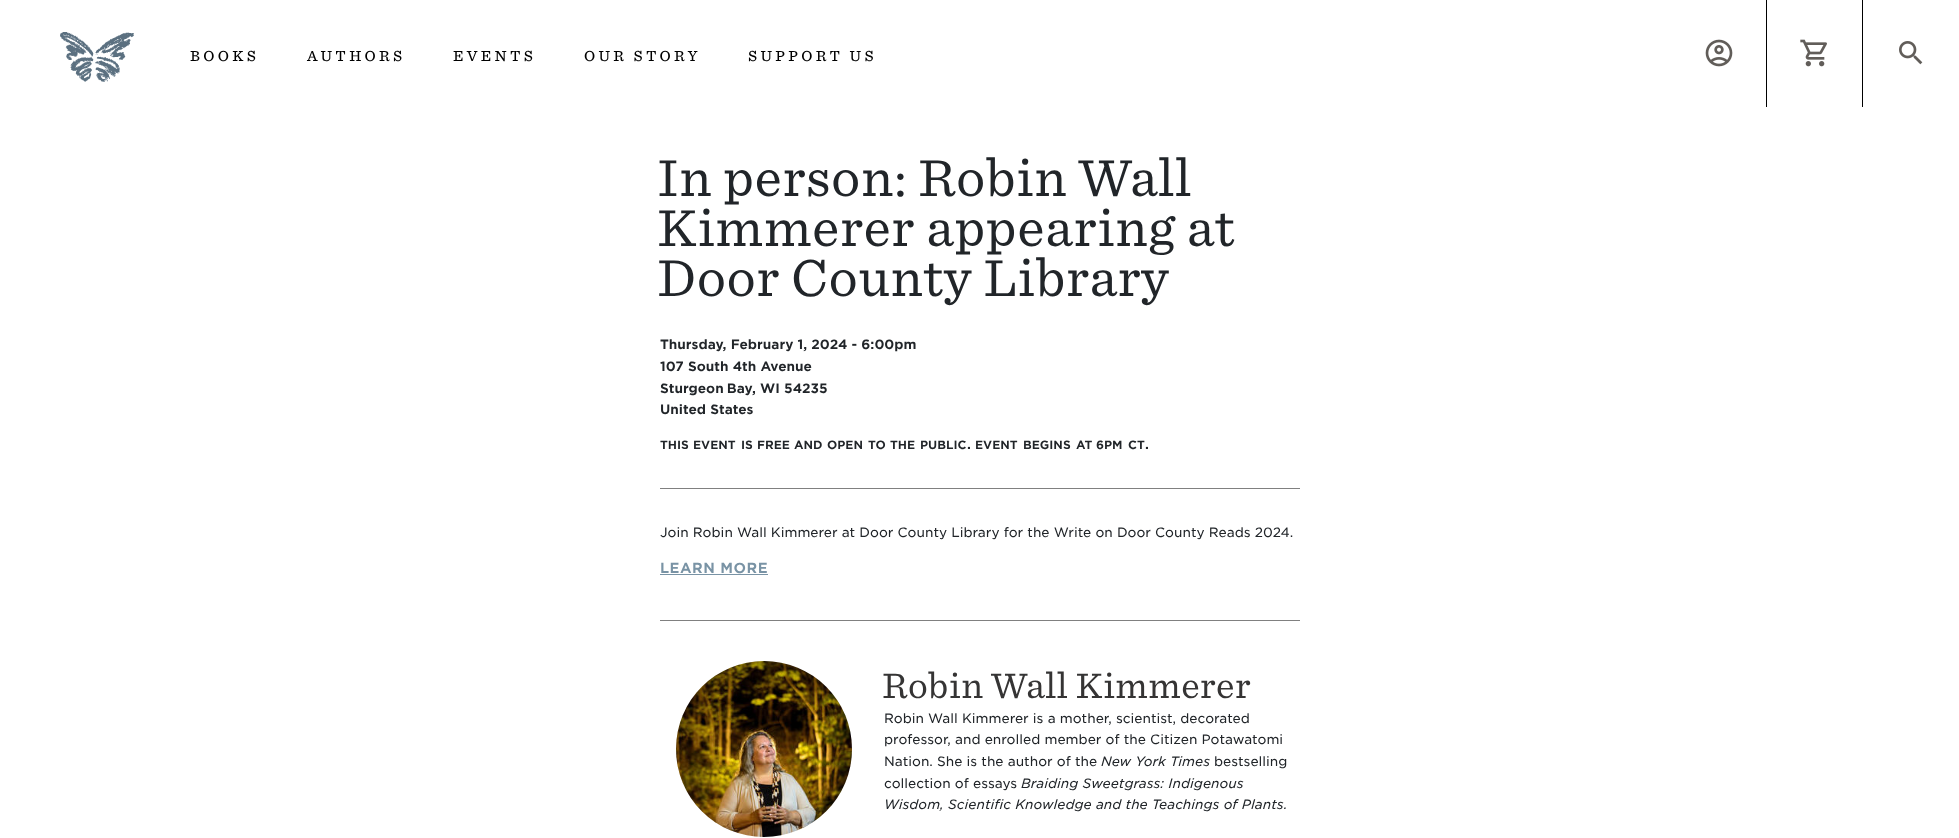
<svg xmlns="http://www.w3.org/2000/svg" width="1959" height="838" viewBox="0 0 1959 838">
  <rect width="100%" height="100%" fill="#fff"/>
  <image x="60" y="32" width="74" height="50" href="img/1.png"/>
  <image x="1705" y="39" width="28" height="28" href="img/2.png"/>
  <path d="M1766 0h1v107H1766z" fill="#000"/>
  <path d="M1862 0h1v107H1862z" fill="#000"/>
  <image x="1800" y="39" width="27" height="28" href="img/3.png"/>
  <image x="1899" y="41" width="24" height="24" href="img/4.png"/>
  <path d="M660 488h640v1H660z" fill="#808080"/>
  <path d="M660 574h108v1H660z" fill="#7993a5"/>
  <path d="M660 620h640v1H660z" fill="#808080"/>
  <image x="676" y="661" width="176" height="176" href="img/5.png"/>
  <g font-family="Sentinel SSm" font-size="14" font-weight="500" letter-spacing="3.25" fill="#000">
    <text x="190" y="61">BOOKS</text>
    <text x="307" y="61">AUTHORS</text>
    <text x="453" y="61">EVENTS</text>
    <text x="584" y="61">OUR STORY</text>
    <text x="748" y="61">SUPPORT US</text>
  </g>
  <g font-family="Sentinel SSm" font-size="50" fill="#212529">
    <text x="657" y="196">In person: Robin Wall</text>
    <text x="657" y="246">Kimmerer appearing at</text>
    <text x="657" y="296">Door County Library</text>
  </g>
  <g font-family="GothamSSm" font-size="13" font-weight="bold" fill="#212529">
    <text x="660" y="349">Thursday, February 1, 2024 - 6:00pm</text>
    <text x="660" y="371">107 South 4th Avenue</text>
    <text x="660" y="393" word-spacing="-1">Sturgeon Bay</text>
    <text x="752" y="393">, WI 54235</text>
    <text x="660" y="414">United States</text>
  </g>
  <g font-family="GothamSSm" font-size="11.5" font-weight="bold" fill="#212529">
    <text x="660" y="449">THIS</text>
    <text x="693" y="449">EVENT</text>
    <text x="741" y="449">IS</text>
    <text x="757" y="449">FREE</text>
    <text x="794" y="449">AND</text>
    <text x="827" y="449">OPEN</text>
    <text x="868" y="449">TO</text>
    <text x="890" y="449">THE</text>
    <text x="920" y="449">PUBLIC</text>
  </g>
  <text x="967" y="449" font-family="GothamSSm" font-size="13" font-weight="bold" fill="#212529">.</text>
  <g font-family="GothamSSm" font-size="11.5" font-weight="bold" fill="#212529">
    <text x="975" y="449">EVENT</text>
    <text x="1023" y="449">BEGINS</text>
    <text x="1076" y="449">AT</text>
    <text x="1096" y="449">6PM</text>
    <text x="1128" y="449">CT</text>
  </g>
  <text x="1145" y="449" font-family="GothamSSm" font-size="13" font-weight="bold" fill="#212529">.</text>
  <text x="660" y="537" font-family="GothamSSm" font-size="13" fill="#212529">Join Robin Wall Kimmerer at Door County Library for the Write on Door County Reads 2024.</text>
  <text x="660" y="573" font-family="GothamSSm" font-size="14" font-weight="bold" letter-spacing="0.5" fill="#7993a5">LEARN MORE</text>
  <text x="882" y="698" font-family="Sentinel SSm" font-size="34" fill="#353434">Robin Wall Kimmerer</text>
  <g font-family="GothamSSm" font-size="13" fill="#212529">
    <text x="884" y="723">Robin Wall Kimmerer is a mother, scientist, decorated</text>
    <text x="884" y="744">professor, and enrolled member of the Citizen Potawatomi</text>
    <text x="884" y="766">Nation. She is the author of the</text>
  </g>
  <text x="1101" y="766" font-family="GothamSSm" font-size="13" font-style="italic" fill="#212529">New York Times</text>
  <g font-family="GothamSSm" font-size="13" fill="#212529">
    <text x="1214" y="766">bestselling</text>
    <text x="884" y="788">collection of essays</text>
  </g>
  <g font-family="GothamSSm" font-size="13" font-style="italic" fill="#212529">
    <text x="1021" y="788">Braiding Sweetgrass: Indigenous</text>
    <text x="884" y="809">Wisdom, Scientific Knowledge and the Teachings of Plants.</text>
  </g>
</svg>
